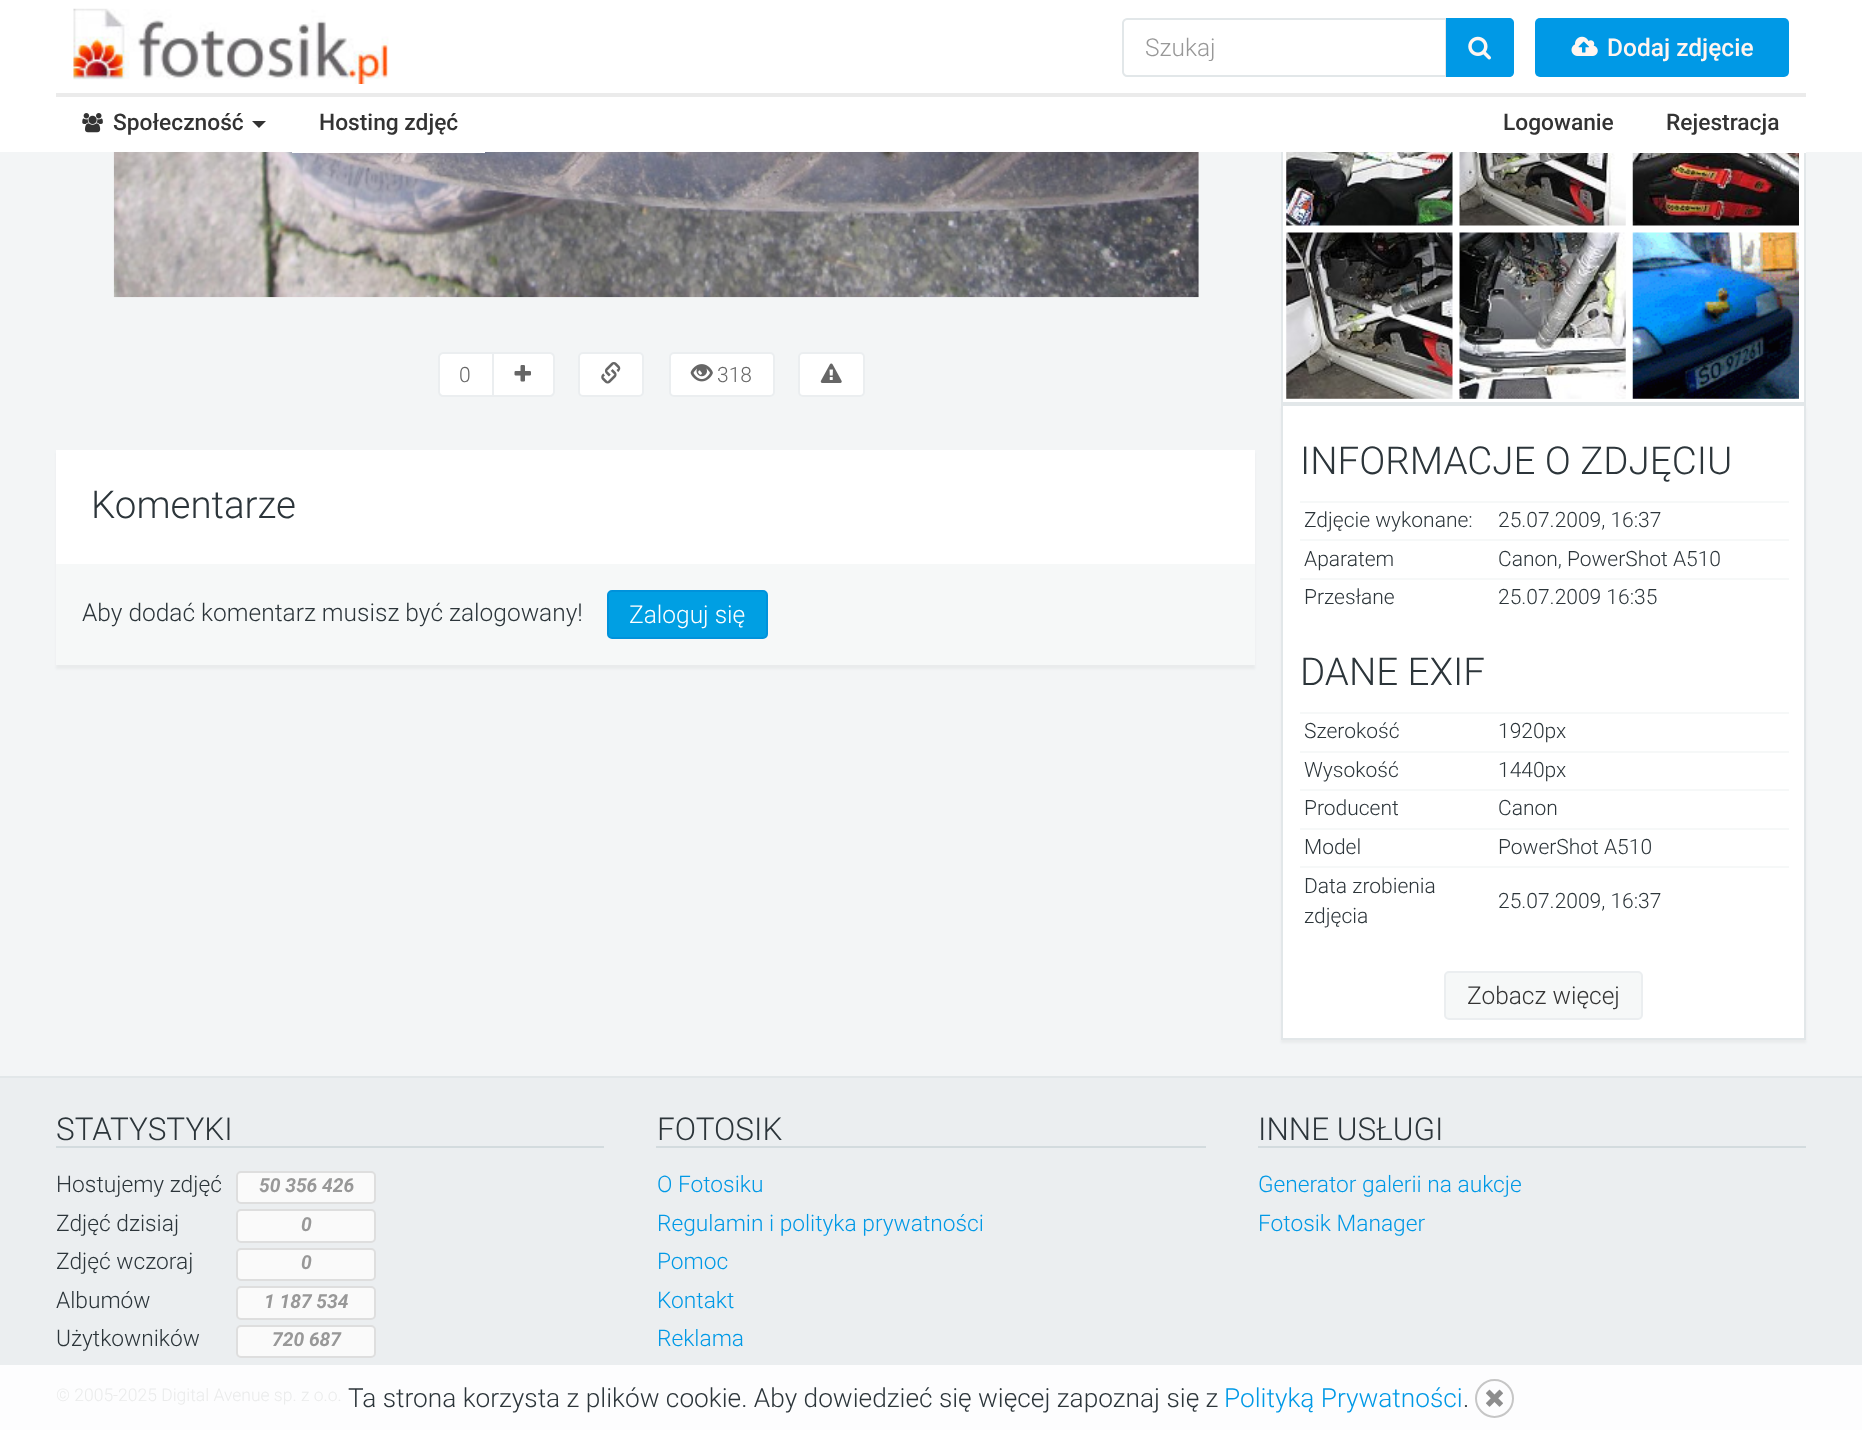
<svg xmlns="http://www.w3.org/2000/svg" width="1862" height="1430" viewBox="0 0 1862 1430">
  <defs>
    <clipPath id="clip1"><path d="M1145 33h280v28H1145z"/></clipPath>
  </defs>
  <rect width="100%" height="100%" fill="#f3f5f6"/>
  <path d="M1283 152h521v250H1283z" fill="#fff"/>
  <path d="M1282 -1h523v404H1282z" fill="none" stroke="#e2e7e9" stroke-width="2"/>
  <path d="M0 0h1862v152H0z" fill="#fff"/>
  <image x="73" y="8" width="316" height="76" href="img/1.png"/>
  <path d="M1127 19H1446V76H1127C1125 76 1123 74 1123 72V23C1123 21 1125 19 1127 19Z" fill="none" stroke="#e2e7e9" stroke-width="2"/>
  <path d="M1446 18H1509C1512 18 1514 20 1514 23V72C1514 75 1512 77 1509 77H1446Z" fill="#0099e6"/>
  <image x="1468" y="36" width="23" height="24" href="img/2.png"/>
  <rect x="1535" y="18" width="254" height="59" rx="5" fill="#0099e6"/>
  <image x="1571" y="36" width="27" height="20" href="img/3.png"/>
  <path d="M56 93h1750v4H56z" fill="#ebebeb"/>
  <image x="82" y="113" width="21" height="20" href="img/4.png"/>
  <path d="M252 121H266L259 128Z" fill="#333"/>
  <image x="113" y="152" width="1086" height="146" href="img/5.png"/>
  <path d="M292 152h193v1H292z" fill="#fff"/>
  <image x="1459" y="152" width="167" height="74" href="img/11.png"/>
  <path d="M1477 152h135v1H1477z" fill="#fff"/>
  <path d="M1804 152h2v1H1804z" fill="#fff"/>
  <path d="M443 353H493V396H443C441 396 439 394 439 392V357C439 355 441 353 443 353Z" fill="#fff" stroke="#ebeef0" stroke-width="2"/>
  <path d="M493 353H550C552 353 554 355 554 357V392C554 394 552 396 550 396H493Z" fill="#fff" stroke="#ebeef0" stroke-width="2"/>
  <image x="514" y="365" width="17" height="17" href="img/6.png"/>
  <rect x="579" y="353" width="64" height="43" rx="4" fill="#fff" stroke="#ebeef0" stroke-width="2"/>
  <image x="601" y="362" width="20" height="22" href="img/7.png"/>
  <rect x="670" y="353" width="104" height="43" rx="4" fill="#fff" stroke="#ebeef0" stroke-width="2"/>
  <image x="690" y="364" width="23" height="18" href="img/8.png"/>
  <rect x="799" y="353" width="65" height="43" rx="4" fill="#fff" stroke="#ebeef0" stroke-width="2"/>
  <image x="820" y="363" width="22" height="20" href="img/9.png"/>
  <path d="M56 453h1199v216H56z" fill="#e9ebec" filter="blur(1px)"/>
  <path d="M56 450h1199v114H56z" fill="#fff"/>
  <path d="M56 564h1199v101H56z" fill="#f6f8f8"/>
  <rect x="608" y="591" width="159" height="47" rx="4" fill="#009fe3" stroke="#0092db" stroke-width="2"/>
  <image x="1286" y="152" width="167" height="74" href="img/10.png"/>
  <image x="1632" y="153" width="167" height="73" href="img/12.png"/>
  <image x="1286" y="232" width="167" height="167" href="img/13.png"/>
  <image x="1459" y="232" width="167" height="167" href="img/14.png"/>
  <image x="1632" y="232" width="167" height="167" href="img/15.png"/>
  <path d="M1281 408h525v635H1281z" fill="#e9ebec" filter="blur(1px)"/>
  <path d="M1282 405h523v634H1282z" fill="#fff" stroke="#e2e7e9" stroke-width="2"/>
  <path d="M1300 501h489v2H1300z" fill="#f6f8f8"/>
  <path d="M1300 539h489v2H1300z" fill="#f6f8f8"/>
  <path d="M1300 578h489v2H1300z" fill="#f6f8f8"/>
  <path d="M1300 712h489v2H1300z" fill="#f6f8f8"/>
  <path d="M1300 751h489v2H1300z" fill="#f6f8f8"/>
  <path d="M1300 789h489v2H1300z" fill="#f6f8f8"/>
  <path d="M1300 828h489v2H1300z" fill="#f6f8f8"/>
  <path d="M1300 866h489v2H1300z" fill="#f6f8f8"/>
  <rect x="1445" y="972" width="197" height="47" rx="4" fill="#f6f8f8" stroke="#ebeef0" stroke-width="2"/>
  <path d="M0 1078h1862v287H0z" fill="#ebeef0"/>
  <path d="M0 1365h1862v65H0z" fill="#fdfdfe"/>
  <path d="M0 1076h1862v2H0z" fill="#e2e7e9"/>
  <path d="M56 1146h548v2H56z" fill="#d3dbde"/>
  <rect x="237" y="1172" width="138" height="31" rx="4" fill="#fafafa" stroke="#dedede" stroke-width="2"/>
  <rect x="237" y="1210" width="138" height="32" rx="4" fill="#fafafa" stroke="#dedede" stroke-width="2"/>
  <rect x="237" y="1249" width="138" height="31" rx="4" fill="#fafafa" stroke="#dedede" stroke-width="2"/>
  <rect x="237" y="1287" width="138" height="32" rx="4" fill="#fafafa" stroke="#dedede" stroke-width="2"/>
  <rect x="237" y="1326" width="138" height="31" rx="4" fill="#fafafa" stroke="#dedede" stroke-width="2"/>
  <path d="M656 1146h550v2H656z" fill="#d3dbde"/>
  <path d="M1258 1146h548v2H1258z" fill="#d3dbde"/>
  <circle cx="1494.5" cy="1398.5" r="18.5" fill="none" stroke="#c6c6c6" stroke-width="2"/>
  <image x="1486" y="1389" width="17" height="18" href="img/16.png"/>
  <g clip-path="url(#clip1)">
    <text x="1145" y="56" font-family="Roboto" font-size="24.5" font-weight="300" fill="#989898">Szukaj</text>
  </g>
  <text x="1607" y="56" font-family="Roboto" font-size="24.5" font-weight="500" fill="#fff5f0">Dodaj zdjęcie</text>
  <g font-family="Roboto" font-size="22.75" font-weight="500" fill="#333">
    <text x="113" y="130">Społeczność</text>
    <text x="319" y="130">Hosting zdjęć</text>
    <text x="1503" y="130">Logowanie</text>
    <text x="1666" y="130">Rejestracja</text>
  </g>
  <g font-family="Roboto" font-size="21" font-weight="300" fill="#666">
    <text x="459" y="382">0</text>
    <text x="717" y="382">318</text>
  </g>
  <text x="91" y="518" font-family="Roboto" font-size="38.5" font-weight="300" fill="#2c353a">Komentarze</text>
  <text x="82" y="621" font-family="Roboto" font-size="24.5" font-weight="300" fill="#2c353a">Aby dodać komentarz musisz być zalogowany!</text>
  <text x="629" y="623" font-family="Roboto" font-size="24.5" font-weight="300" fill="#fff">Zaloguj się</text>
  <text x="1300" y="474" font-family="Roboto" font-size="38.5" font-weight="300" fill="#2c353a">INFORMACJE O ZDJĘCIU</text>
  <g font-family="Roboto" font-size="21" font-weight="300" fill="#2c353a">
    <text x="1304" y="527">Zdjęcie wykonane:</text>
    <text x="1498" y="527">25.07.2009, 16:37</text>
    <text x="1304" y="566">Aparatem</text>
    <text x="1498" y="566">Canon, PowerShot A510</text>
    <text x="1304" y="604">Przesłane</text>
    <text x="1498" y="604">25.07.2009 16:35</text>
  </g>
  <text x="1300" y="685" font-family="Roboto" font-size="38.5" font-weight="300" fill="#2c353a">DANE EXIF</text>
  <g font-family="Roboto" font-size="21" font-weight="300" fill="#2c353a">
    <text x="1304" y="738">Szerokość</text>
    <text x="1498" y="738">1920px</text>
    <text x="1304" y="777">Wysokość</text>
    <text x="1498" y="777">1440px</text>
    <text x="1304" y="815">Producent</text>
    <text x="1498" y="815">Canon</text>
    <text x="1304" y="854">Model</text>
    <text x="1498" y="854">PowerShot A510</text>
    <text x="1304" y="893">Data zrobienia</text>
    <text x="1304" y="923">zdjęcia</text>
    <text x="1498" y="908">25.07.2009, 16:37</text>
  </g>
  <text x="1467" y="1004" font-family="Roboto" font-size="24.5" font-weight="300" fill="#333">Zobacz więcej</text>
  <text x="56" y="1140" font-family="Roboto" font-size="31.5" font-weight="300" fill="#2c353a">STATYSTYKI</text>
  <text x="56" y="1192" font-family="Roboto" font-size="22.75" font-weight="300" fill="#2c353a">Hostujemy zdjęć</text>
  <text x="259" y="1192" font-family="Roboto" font-size="19.25" font-weight="bold" font-style="italic" fill="#989898">50 356 426</text>
  <text x="56" y="1231" font-family="Roboto" font-size="22.75" font-weight="300" fill="#2c353a">Zdjęć dzisiaj</text>
  <text x="301" y="1231" font-family="Roboto" font-size="19.25" font-weight="bold" font-style="italic" fill="#989898">0</text>
  <text x="56" y="1269" font-family="Roboto" font-size="22.75" font-weight="300" fill="#2c353a">Zdjęć wczoraj</text>
  <text x="301" y="1269" font-family="Roboto" font-size="19.25" font-weight="bold" font-style="italic" fill="#989898">0</text>
  <text x="56" y="1308" font-family="Roboto" font-size="22.75" font-weight="300" fill="#2c353a">Albumów</text>
  <text x="264" y="1308" font-family="Roboto" font-size="19.25" font-weight="bold" font-style="italic" fill="#989898">1 187 534</text>
  <text x="56" y="1346" font-family="Roboto" font-size="22.75" font-weight="300" fill="#2c353a">Użytkowników</text>
  <text x="272" y="1346" font-family="Roboto" font-size="19.25" font-weight="bold" font-style="italic" fill="#989898">720 687</text>
  <text x="657" y="1140" font-family="Roboto" font-size="31.5" font-weight="300" fill="#2c353a">FOTOSIK</text>
  <g font-family="Roboto" font-size="22.75" font-weight="300" fill="#0099e6">
    <text x="657" y="1192">O Fotosiku</text>
    <text x="657" y="1231">Regulamin i polityka prywatności</text>
    <text x="657" y="1269">Pomoc</text>
    <text x="657" y="1308">Kontakt</text>
    <text x="657" y="1346">Reklama</text>
  </g>
  <text x="1258" y="1140" font-family="Roboto" font-size="31.5" font-weight="300" fill="#2c353a">INNE USŁUGI</text>
  <g font-family="Roboto" font-size="22.75" font-weight="300" fill="#0099e6">
    <text x="1258" y="1192">Generator galerii na aukcje</text>
    <text x="1258" y="1231">Fotosik Manager</text>
  </g>
  <text x="56" y="1401" font-family="Roboto" font-size="17.5" font-weight="300" fill="#eaebeb">© 2005-2025 Digital Avenue sp. z o.o.</text>
  <text x="348" y="1407" font-family="Roboto" font-size="26.25" font-weight="300" fill="#2c353a">Ta strona korzysta z plików cookie. Aby dowiedzieć się więcej zapoznaj się z</text>
  <text x="1224" y="1407" font-family="Roboto" font-size="26.25" font-weight="300" fill="#0099e6">Polityką Prywatności</text>
  <text x="1463" y="1407" font-family="Roboto" font-size="26.25" font-weight="300" fill="#2c353a">.</text>
</svg>
